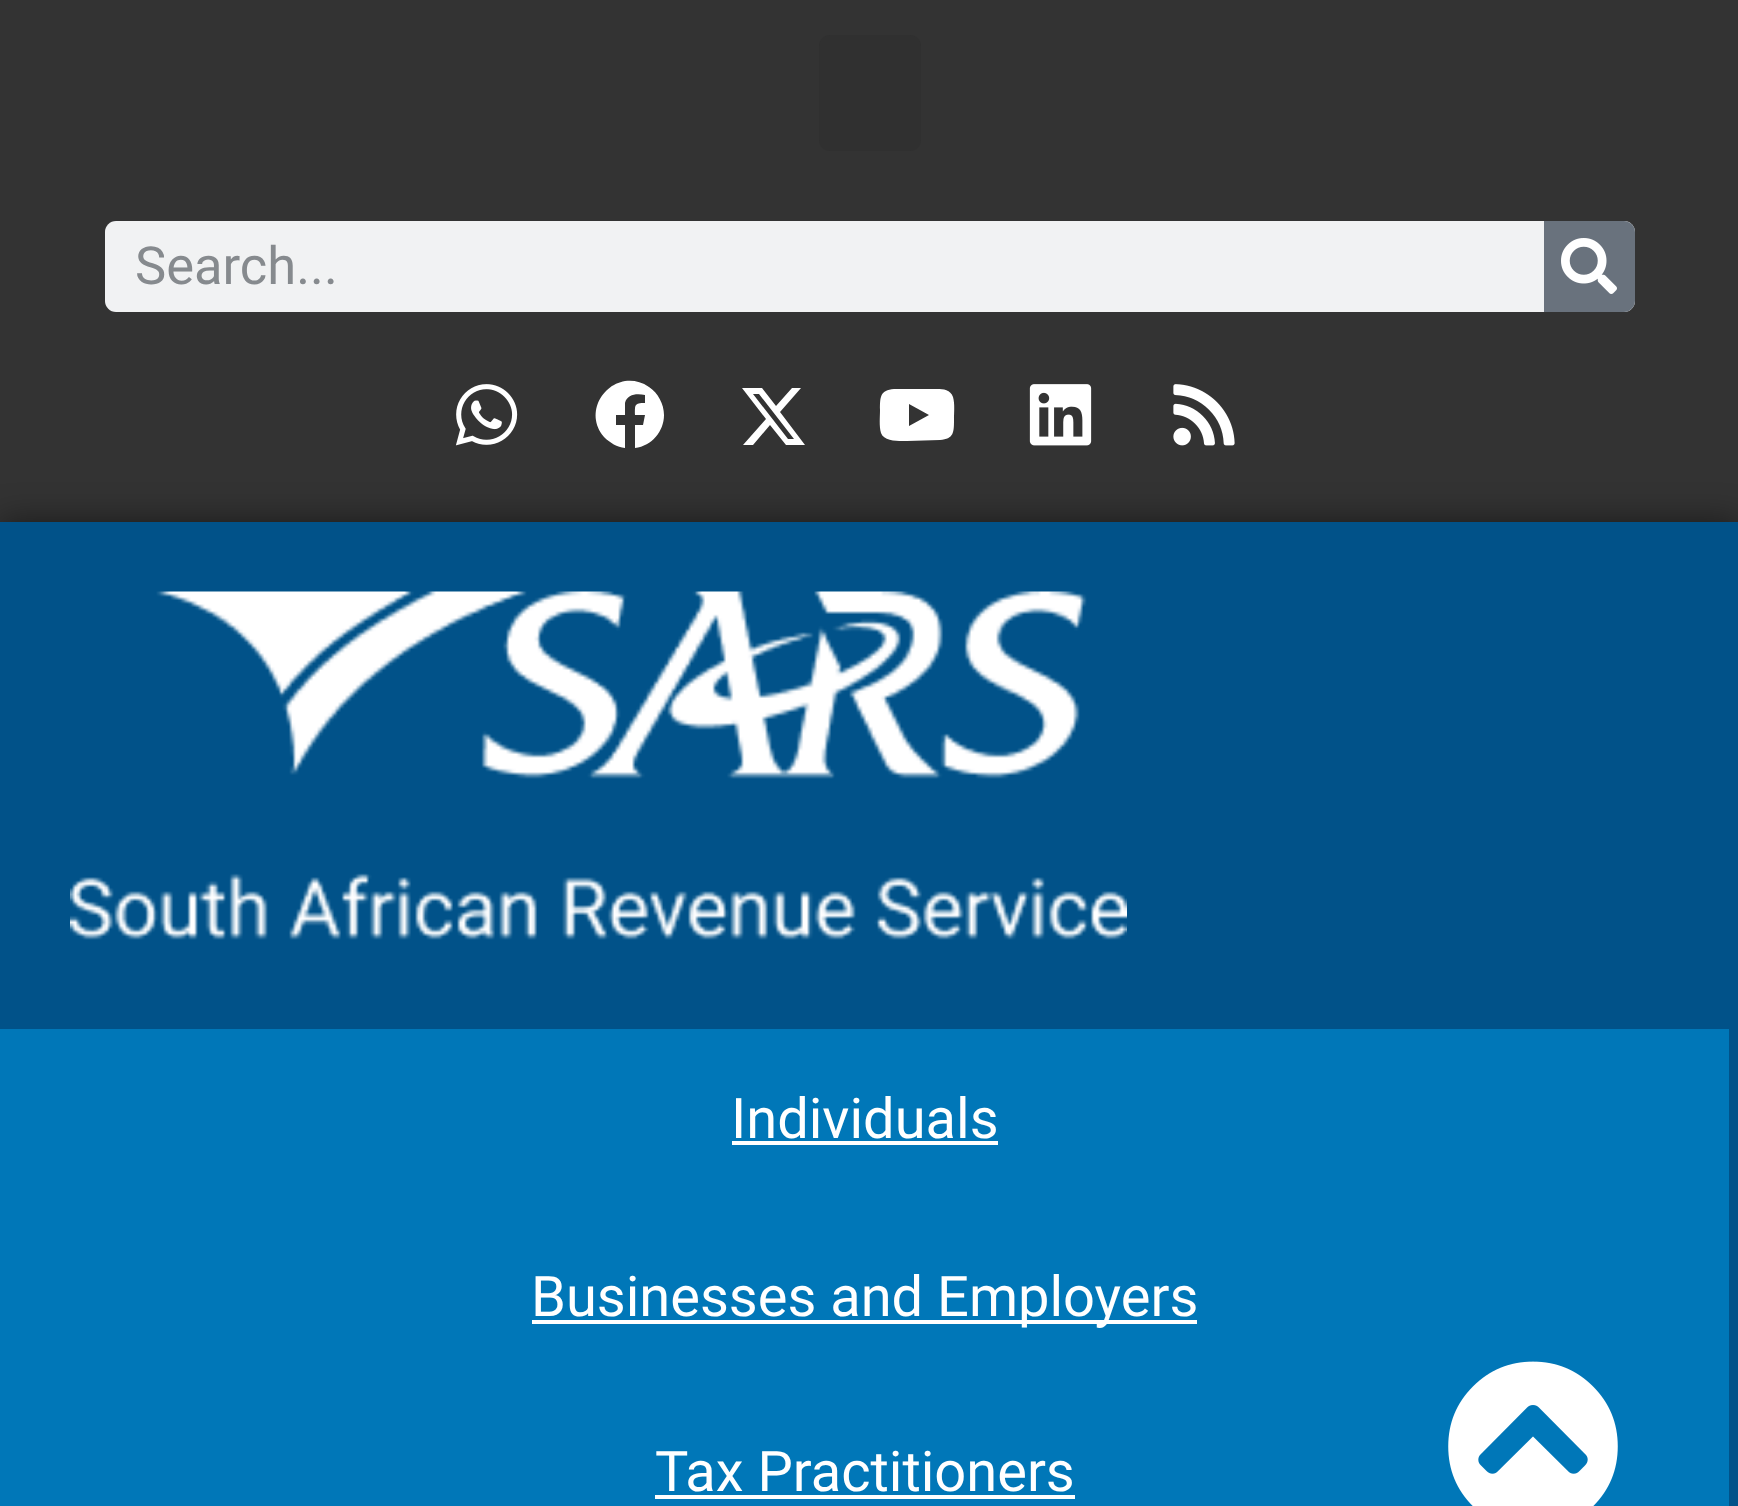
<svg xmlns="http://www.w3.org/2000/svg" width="1738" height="1506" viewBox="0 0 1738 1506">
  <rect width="100%" height="100%" fill="#333"/>
  <rect x="819" y="35" width="102" height="116" rx="11" fill="#303030"/>
  <rect x="105" y="221" width="1530" height="91" rx="11" fill="#f1f2f3"/>
  <path d="M1544 221H1624C1630 221 1635 226 1635 232V301C1635 307 1630 312 1624 312H1544Z" fill="#69727d"/>
  <image x="1561" y="238" width="56" height="56" href="img/1.png"/>
  <image x="455" y="384" width="63" height="62" href="img/2.png"/>
  <path d="M664 415C664 431 652 446 635 448V425H643L645 415H635C635 405 634 403 645 403V395C637 393 627 394 625 403V415H616V425H625V448C617 447 610 443 604 437C579 407 616 365 649 387C658 393 664 404 664 415Z" fill="#fff"/>
  <path d="M792 388H801L780 412L805 445H786L770 425L753 445H743L766 419L742 388H762L776 406ZM788 439H794L759 394H753Z" fill="#fff"/>
  <path d="M953 397C955 404 954 412 954 420C954 432 954 439 940 440L907 441C900 441 884 442 881 433C879 426 880 417 880 410C880 397 880 390 894 389H911H933C940 389 950 388 953 397ZM909 426L929 415L909 404Z" fill="#fff"/>
  <image x="1029" y="384" width="63" height="62" href="img/3.png"/>
  <image x="1173" y="384" width="62" height="62" href="img/4.png"/>
  <path d="M0 522h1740v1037H0z" fill="#00000080" filter="blur(17.5px)"/>
  <path d="M0 522h1738v984H0z" fill="#015289"/>
  <image x="70" y="591" width="1057" height="349" href="img/5.png"/>
  <path d="M0 1029h1729v477H0z" fill="#0077b8"/>
  <path d="M732 1141h266v4H732z" fill="#fff"/>
  <path d="M532 1320h665v4H532z" fill="#fff"/>
  <path d="M655 1495h420v4H655z" fill="#fff"/>
  <image x="1448" y="1361" width="170" height="145" href="img/6.png"/>
  <text x="135" y="284" font-family="Roboto" font-size="52.5" fill="#868a8e">Search...</text>
  <g font-family="Roboto" font-size="56" fill="#fff">
    <text x="731" y="1138">Individuals</text>
    <text x="531" y="1316">Businesses and Employers</text>
    <text x="655" y="1491">Tax Practitioners</text>
  </g>
</svg>
